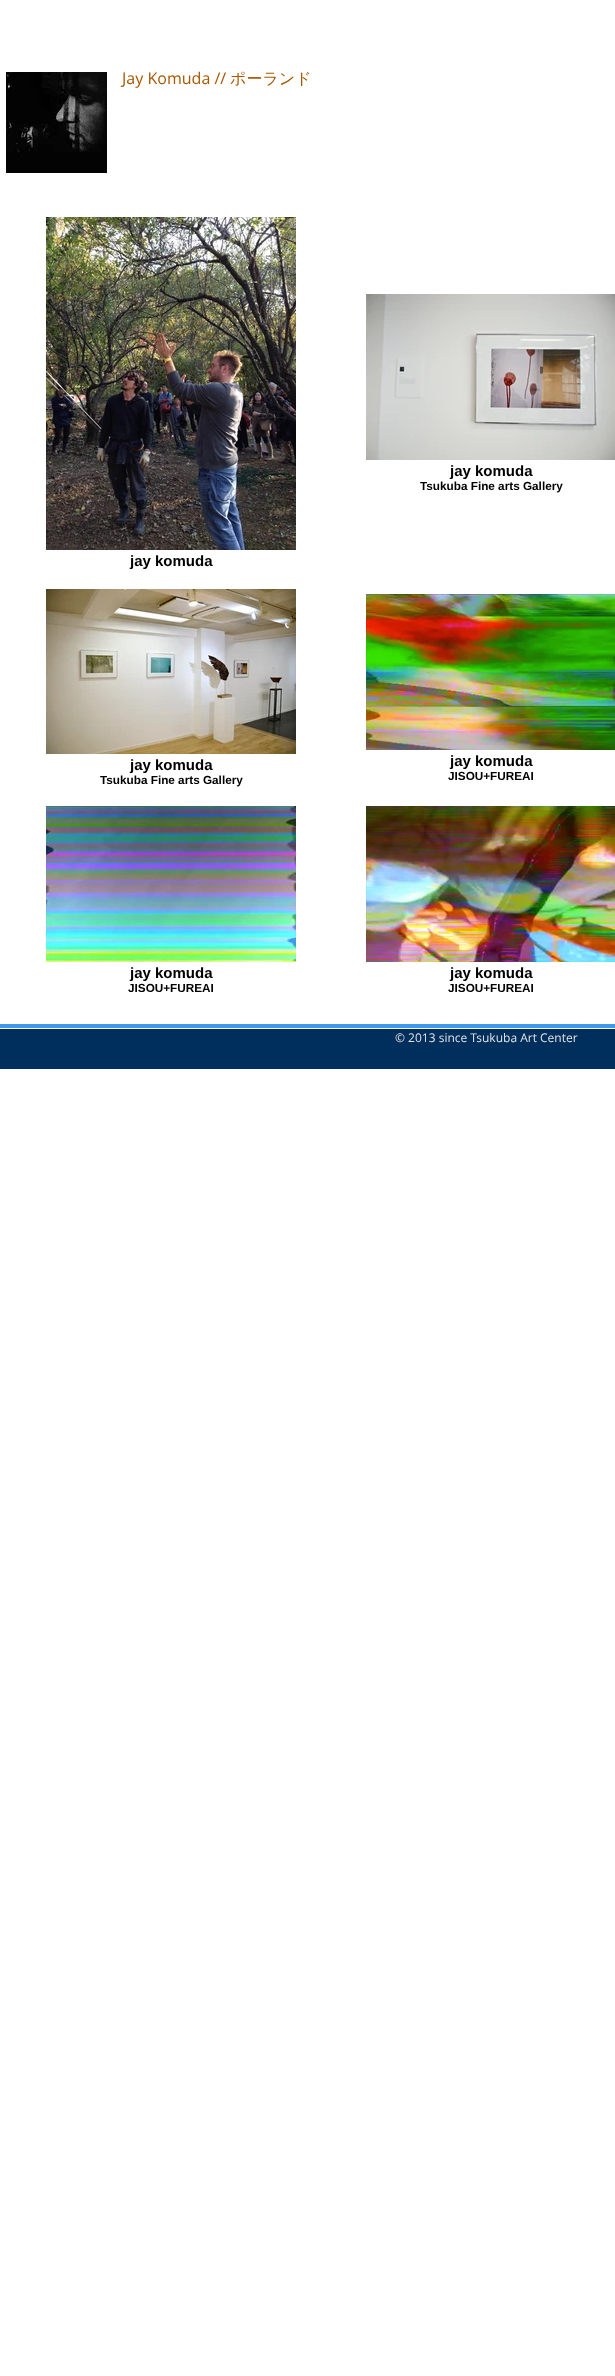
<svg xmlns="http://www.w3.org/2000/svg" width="615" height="2376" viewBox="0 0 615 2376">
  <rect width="100%" height="100%" fill="#fff"/>
  <image x="6" y="72" width="101" height="101" href="img/1.png"/>
  <image x="366" y="294" width="249" height="166" href="img/2.png"/>
  <image x="46" y="217" width="250" height="333" href="img/3.png"/>
  <image x="46" y="589" width="250" height="165" href="img/4.png"/>
  <image x="366" y="594" width="249" height="156" href="img/5.png"/>
  <image x="46" y="806" width="250" height="156" href="img/6.png"/>
  <image x="366" y="806" width="249" height="156" href="img/7.png"/>
  <path d="M0 1024h615v4H0z" fill="#3d9be9"/>
  <path d="M0 1029h615v40H0z" fill="#002e5d"/>
  <text x="122" y="84" font-family="Open Sans" font-size="16" fill="#a95700">Jay Komuda //</text>
  <text x="230" y="84" font-family="WenQuanYi Zen Hei" font-size="16" font-weight="500" fill="#a95700">ポーランド</text>
  <text x="450" y="476" font-family="Liberation Sans" font-size="15" font-weight="bold" fill="#000">jay komuda</text>
  <text x="420" y="490" font-family="Liberation Sans" font-size="11.75" font-weight="bold" fill="#000">Tsukuba Fine arts Gallery</text>
  <g font-family="Liberation Sans" font-size="15" font-weight="bold" fill="#000">
    <text x="130" y="566">jay komuda</text>
    <text x="130" y="770">jay komuda</text>
  </g>
  <text x="100" y="784" font-family="Liberation Sans" font-size="11.75" font-weight="bold" fill="#000">Tsukuba Fine arts Gallery</text>
  <text x="450" y="766" font-family="Liberation Sans" font-size="15" font-weight="bold" fill="#000">jay komuda</text>
  <text x="448" y="780" font-family="Liberation Sans" font-size="11.75" font-weight="bold" fill="#000">JISOU+FUREAI</text>
  <text x="130" y="978" font-family="Liberation Sans" font-size="15" font-weight="bold" fill="#000">jay komuda</text>
  <text x="128" y="992" font-family="Liberation Sans" font-size="11.75" font-weight="bold" fill="#000">JISOU+FUREAI</text>
  <text x="450" y="978" font-family="Liberation Sans" font-size="15" font-weight="bold" fill="#000">jay komuda</text>
  <text x="448" y="992" font-family="Liberation Sans" font-size="11.75" font-weight="bold" fill="#000">JISOU+FUREAI</text>
  <text x="395" y="1042" font-family="Open Sans" font-size="12" fill="#e3e3e3">© 2013 since Tsukuba Art Center</text>
</svg>
